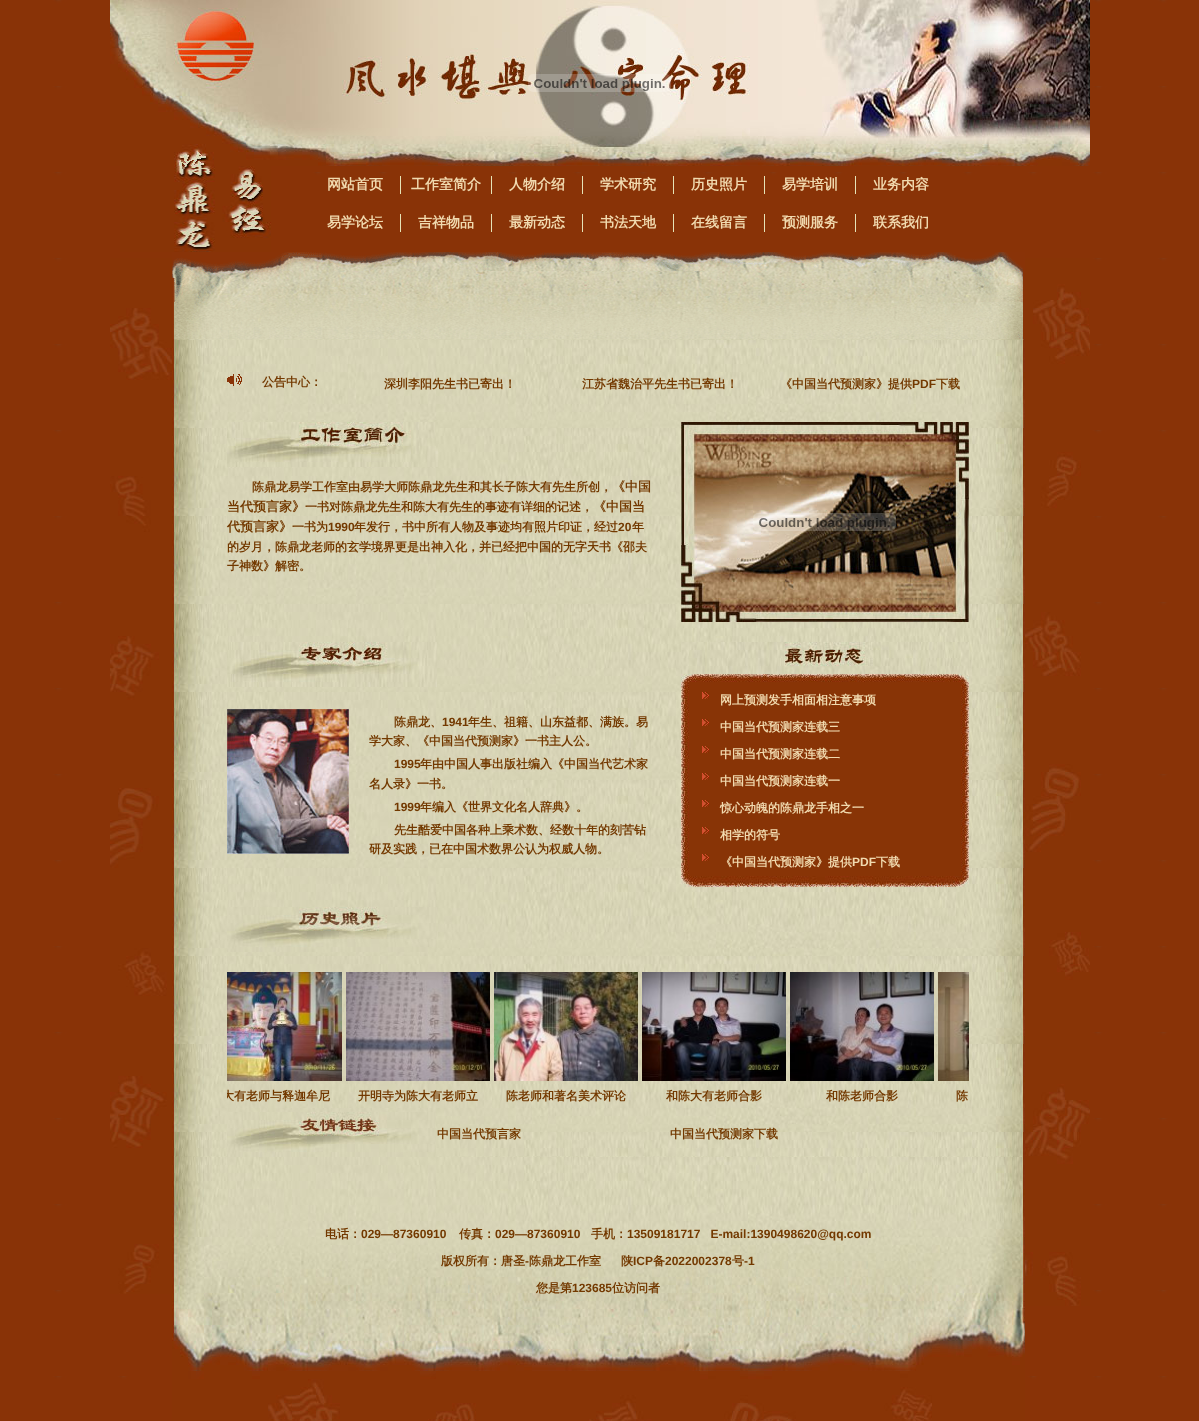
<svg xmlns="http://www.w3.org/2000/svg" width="1199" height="1421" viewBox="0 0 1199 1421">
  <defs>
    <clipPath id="clip1"><path d="M227 962h742v150H227z"/></clipPath>
  </defs>
  <rect width="100%" height="100%" fill="#fff"/>
  <image x="0" y="0" width="1199" height="1421" href="img/1.png"/>
  <image x="110" y="0" width="980" height="166" href="img/2.png"/>
  <image x="528" y="74" width="143" height="18" href="img/3.png"/>
  <image x="120" y="166" width="151" height="86" href="img/4.png"/>
  <path d="M400 176h1v18H400z" fill="#e6e3b7"/>
  <path d="M491 176h1v18H491z" fill="#e6e3b7"/>
  <path d="M582 176h1v18H582z" fill="#e6e3b7"/>
  <path d="M673 176h1v18H673z" fill="#e6e3b7"/>
  <path d="M764 176h1v18H764z" fill="#e6e3b7"/>
  <path d="M855 176h1v18H855z" fill="#e6e3b7"/>
  <path d="M400 214h1v18H400z" fill="#e6e3b7"/>
  <path d="M491 214h1v18H491z" fill="#e6e3b7"/>
  <path d="M582 214h1v18H582z" fill="#e6e3b7"/>
  <path d="M673 214h1v18H673z" fill="#e6e3b7"/>
  <path d="M764 214h1v18H764z" fill="#e6e3b7"/>
  <path d="M855 214h1v18H855z" fill="#e6e3b7"/>
  <image x="1025" y="258" width="65" height="1048" href="img/5.png"/>
  <image x="110" y="258" width="62" height="1036" href="img/6.png"/>
  <image x="172" y="339" width="853" height="818" href="img/7.png"/>
  <image x="172" y="252" width="853" height="87" href="img/8.png"/>
  <image x="227" y="374" width="15" height="12" href="img/9.png"/>
  <image x="227" y="422" width="211" height="45" href="img/10.png"/>
  <image x="290" y="422" width="147" height="45" href="img/11.png"/>
  <image x="681" y="422" width="288" height="200" href="img/12.png"/>
  <image x="753" y="513" width="143" height="18" href="img/13.png"/>
  <image x="227" y="642" width="210" height="45" href="img/14.png"/>
  <image x="227" y="709" width="122" height="145" href="img/15.png"/>
  <image x="681" y="687" width="288" height="189" href="img/16.png"/>
  <image x="681" y="642" width="288" height="45" href="img/17.png"/>
  <image x="681" y="876" width="288" height="11" href="img/18.png"/>
  <image x="702" y="692" width="7" height="7" href="img/19.png"/>
  <image x="702" y="719" width="7" height="7" href="img/19.png"/>
  <image x="702" y="746" width="7" height="7" href="img/19.png"/>
  <image x="702" y="773" width="7" height="7" href="img/19.png"/>
  <image x="702" y="800" width="7" height="7" href="img/19.png"/>
  <image x="702" y="827" width="7" height="7" href="img/19.png"/>
  <image x="702" y="854" width="7" height="7" href="img/19.png"/>
  <image x="227" y="907" width="211" height="45" href="img/20.png"/>
  <image x="292" y="907" width="136" height="35" href="img/21.png"/>
  <image x="227" y="972" width="115" height="109" href="img/22.png"/>
  <image x="346" y="972" width="144" height="109" href="img/23.png"/>
  <image x="494" y="972" width="144" height="109" href="img/24.png"/>
  <image x="642" y="972" width="144" height="109" href="img/25.png"/>
  <image x="790" y="972" width="144" height="109" href="img/26.png"/>
  <image x="938" y="972" width="31" height="109" href="img/27.png"/>
  <image x="227" y="1112" width="209" height="45" href="img/28.png"/>
  <image x="172" y="1371" width="853" height="50" href="img/29.png"/>
  <image x="172" y="1157" width="853" height="214" href="img/30.png"/>
  <g font-family="WenQuanYi Zen Hei" font-size="14" font-weight="bold" fill="#f1daaf">
    <text x="327" y="189">网站首页</text>
    <text x="411" y="189">工作室简介</text>
    <text x="509" y="189">人物介绍</text>
    <text x="600" y="189">学术研究</text>
    <text x="691" y="189">历史照片</text>
    <text x="782" y="189">易学培训</text>
    <text x="873" y="189">业务内容</text>
    <text x="327" y="227">易学论坛</text>
    <text x="418" y="227">吉祥物品</text>
    <text x="509" y="227">最新动态</text>
    <text x="600" y="227">书法天地</text>
    <text x="691" y="227">在线留言</text>
    <text x="782" y="227">预测服务</text>
    <text x="873" y="227">联系我们</text>
  </g>
  <g font-family="WenQuanYi Zen Hei" font-size="12" font-weight="bold" fill="#733900">
    <text x="262" y="386">公告中心：</text>
    <text x="384" y="388">深圳李阳先生书已寄出！</text>
    <text x="582" y="388">江苏省魏治平先生书已寄出！</text>
    <text x="780" y="388">《中国当代预测家》提供</text>
  </g>
  <text x="912" y="388" font-family="Liberation Sans" font-size="12" font-weight="bold" fill="#733900">PDF</text>
  <g font-family="WenQuanYi Zen Hei" font-size="12" font-weight="bold" fill="#733900">
    <text x="936" y="388">下载</text>
    <text x="252" y="491">陈鼎龙易学工作室由易学大师陈鼎龙先生和其长子陈大有先生所创，</text>
  </g>
  <g font-family="WenQuanYi Zen Hei" font-size="13" font-weight="bold" fill="#733900">
    <text x="612" y="491">《中国</text>
    <text x="227" y="511">当代预言家》</text>
  </g>
  <text x="305" y="511" font-family="WenQuanYi Zen Hei" font-size="12" font-weight="bold" fill="#733900">一书对陈鼎龙先生和陈大有先生的事迹有详细的记述，</text>
  <g font-family="WenQuanYi Zen Hei" font-size="13" font-weight="bold" fill="#733900">
    <text x="593" y="511">《中国当</text>
    <text x="227" y="531">代预言家》</text>
  </g>
  <text x="292" y="531" font-family="WenQuanYi Zen Hei" font-size="12" font-weight="bold" fill="#733900">一书为</text>
  <text x="328" y="531" font-family="Liberation Sans" font-size="12" font-weight="bold" fill="#733900">1990</text>
  <text x="354" y="531" font-family="WenQuanYi Zen Hei" font-size="12" font-weight="bold" fill="#733900">年发行，书中所有人物及事迹均有照片印证，经过</text>
  <text x="618" y="531" font-family="Liberation Sans" font-size="12" font-weight="bold" fill="#733900">20</text>
  <g font-family="WenQuanYi Zen Hei" font-size="12" font-weight="bold" fill="#733900">
    <text x="632" y="531">年</text>
    <text x="227" y="551">的岁月，陈鼎龙老师的玄学境界更是出神入化，并已经把中国的无字天书《邵夫</text>
    <text x="227" y="570">子神数》解密。</text>
    <text x="394" y="726">陈鼎龙、</text>
  </g>
  <text x="442" y="726" font-family="Liberation Sans" font-size="12" font-weight="bold" fill="#733900">1941</text>
  <g font-family="WenQuanYi Zen Hei" font-size="12" font-weight="bold" fill="#733900">
    <text x="468" y="726">年生、祖籍、山东益都、满族。易</text>
    <text x="369" y="745">学大家、《中国当代预测家》一书主人公。</text>
  </g>
  <text x="394" y="768" font-family="Liberation Sans" font-size="12" font-weight="bold" fill="#733900">1995</text>
  <g font-family="WenQuanYi Zen Hei" font-size="12" font-weight="bold" fill="#733900">
    <text x="420" y="768">年由中国人事出版社编入《中国当代艺术家</text>
    <text x="369" y="788">名人录》一书。</text>
  </g>
  <text x="394" y="811" font-family="Liberation Sans" font-size="12" font-weight="bold" fill="#733900">1999</text>
  <g font-family="WenQuanYi Zen Hei" font-size="12" font-weight="bold" fill="#733900">
    <text x="420" y="811">年编入《世界文化名人辞典》。</text>
    <text x="394" y="834">先生酷爱中国各种上乘术数、经数十年的刻苦钻</text>
    <text x="369" y="853">研及实践，已在中国术数界公认为权威人物。</text>
  </g>
  <g font-family="WenQuanYi Zen Hei" font-size="12" font-weight="bold" fill="#f1daaf">
    <text x="720" y="704">网上预测发手相面相注意事项</text>
    <text x="720" y="731">中国当代预测家连载三</text>
    <text x="720" y="758">中国当代预测家连载二</text>
    <text x="720" y="785">中国当代预测家连载一</text>
    <text x="720" y="812">惊心动魄的陈鼎龙手相之一</text>
    <text x="720" y="839">相学的符号</text>
    <text x="720" y="866">《中国当代预测家》提供</text>
  </g>
  <text x="852" y="866" font-family="Liberation Sans" font-size="12" font-weight="bold" fill="#f1daaf">PDF</text>
  <text x="876" y="866" font-family="WenQuanYi Zen Hei" font-size="12" font-weight="bold" fill="#f1daaf">下载</text>
  <g clip-path="url(#clip1)">
    <text x="222" y="1100" font-family="WenQuanYi Zen Hei" font-size="12" font-weight="bold" fill="#733900">大有老师与释迦牟尼</text>
  </g>
  <g font-family="WenQuanYi Zen Hei" font-size="12" font-weight="bold" fill="#733900">
    <text x="358" y="1100">开明寺为陈大有老师立</text>
    <text x="506" y="1100">陈老师和著名美术评论</text>
    <text x="666" y="1100">和陈大有老师合影</text>
    <text x="826" y="1100">和陈老师合影</text>
    <text x="956" y="1100">陈</text>
    <text x="437" y="1138">中国当代预言家</text>
    <text x="670" y="1138">中国当代预测家下载</text>
    <text x="325" y="1238">电话：</text>
  </g>
  <text x="361" y="1238" font-family="Liberation Sans" font-size="12" font-weight="bold" fill="#733900">029—87360910</text>
  <text x="459" y="1238" font-family="WenQuanYi Zen Hei" font-size="12" font-weight="bold" fill="#733900">传真：</text>
  <text x="495" y="1238" font-family="Liberation Sans" font-size="12" font-weight="bold" fill="#733900">029—87360910</text>
  <text x="591" y="1238" font-family="WenQuanYi Zen Hei" font-size="12" font-weight="bold" fill="#733900">手机：</text>
  <text x="627" y="1238" font-family="Liberation Sans" font-size="12" font-weight="bold" fill="#733900" xml:space="preserve">13509181717   E-mail:1390498620@qq.com</text>
  <text x="441" y="1265" font-family="WenQuanYi Zen Hei" font-size="12" font-weight="bold" fill="#733900">版权所有：唐圣</text>
  <text x="525" y="1265" font-family="Liberation Sans" font-size="12" font-weight="bold" fill="#733900">-</text>
  <g font-family="WenQuanYi Zen Hei" font-size="12" font-weight="bold" fill="#733900">
    <text x="529" y="1265">陈鼎龙工作室</text>
    <text x="621" y="1265">陕</text>
  </g>
  <text x="633" y="1265" font-family="Liberation Sans" font-size="12" font-weight="bold" fill="#733900">ICP</text>
  <text x="653" y="1265" font-family="WenQuanYi Zen Hei" font-size="12" font-weight="bold" fill="#733900">备</text>
  <text x="665" y="1265" font-family="Liberation Sans" font-size="12" font-weight="bold" fill="#733900">2022002378</text>
  <text x="732" y="1265" font-family="WenQuanYi Zen Hei" font-size="12" font-weight="bold" fill="#733900">号</text>
  <text x="744" y="1265" font-family="Liberation Sans" font-size="12" font-weight="bold" fill="#733900">-1</text>
  <text x="536" y="1292" font-family="WenQuanYi Zen Hei" font-size="12" font-weight="bold" fill="#733900">您是第</text>
  <text x="572" y="1292" font-family="Liberation Sans" font-size="12" font-weight="bold" fill="#733900">123685</text>
  <text x="612" y="1292" font-family="WenQuanYi Zen Hei" font-size="12" font-weight="bold" fill="#733900">位访问者</text>
</svg>
